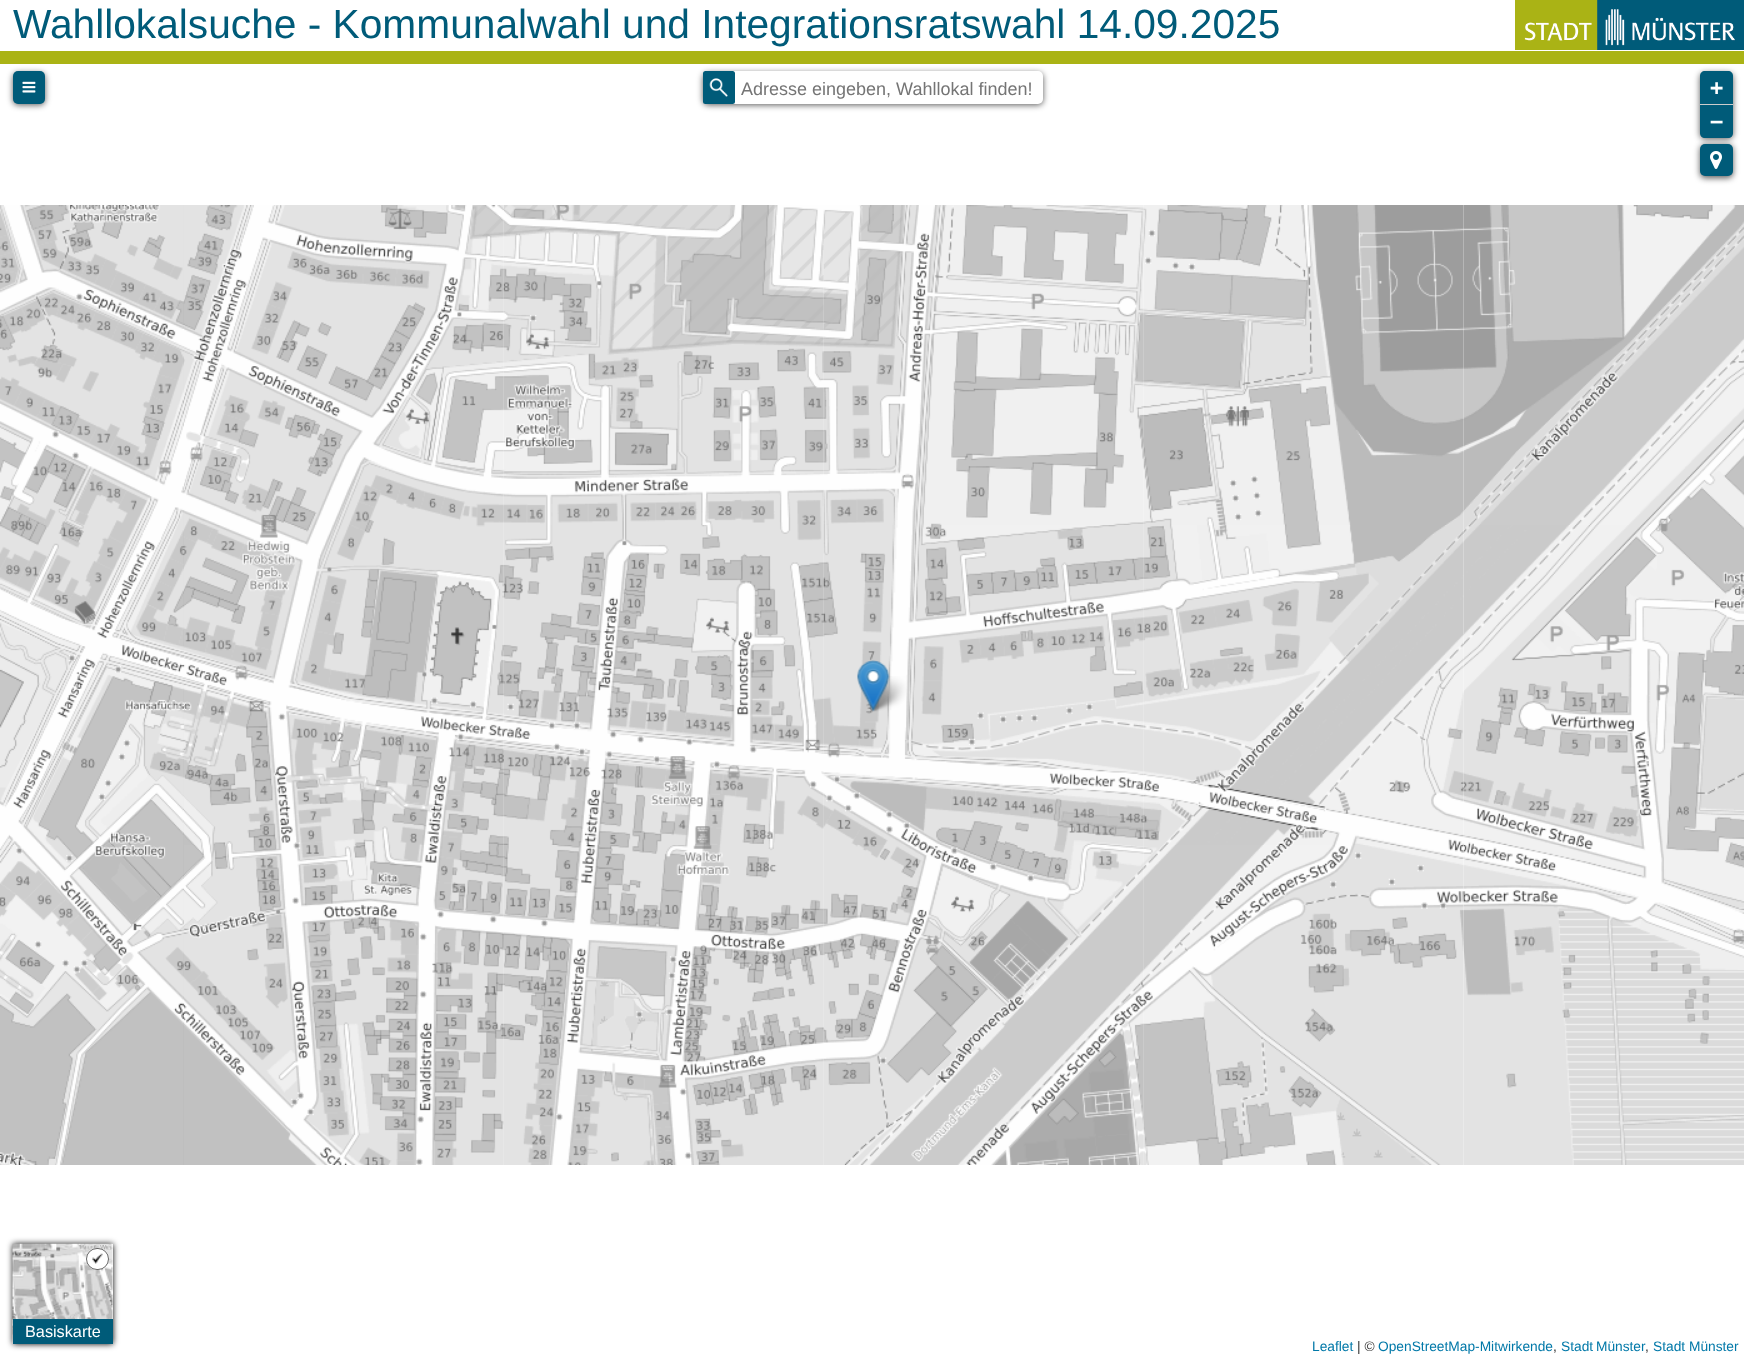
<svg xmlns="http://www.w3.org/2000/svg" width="1744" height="1356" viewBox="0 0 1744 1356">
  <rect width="100%" height="100%" fill="#fff"/>
  <path d="M0 51h1744v13H0z" fill="#aab315"/>
  <image x="1515" y="0" width="229" height="50" href="img/1.png"/>
  <rect x="13" y="73" width="32" height="32" rx="5" fill="#000000a6" filter="blur(3px)"/>
  <rect x="13" y="71" width="32" height="33" rx="5" fill="#005b79"/>
  <image x="22" y="81" width="14" height="12" href="img/2.png"/>
  <rect x="703" y="73" width="340" height="32" rx="5" fill="#000000a6" filter="blur(3px)"/>
  <rect x="703" y="71" width="340" height="33" rx="5" fill="#fff"/>
  <rect x="703" y="71" width="32" height="33" rx="2.5" fill="#005b79"/>
  <image x="709" y="78" width="19" height="19" href="img/3.png"/>
  <rect x="1700" y="73" width="33" height="66" rx="5" fill="#000000a6" filter="blur(3px)"/>
  <path d="M1705 71H1728C1731 71 1733 73 1733 76V105H1700V76C1700 73 1702 71 1705 71Z" fill="#005b79"/>
  <path d="M1700 104h33v1H1700z" fill="#ccc"/>
  <path d="M1700 105H1733V133C1733 136 1731 138 1728 138H1705C1702 138 1700 136 1700 133Z" fill="#005b79"/>
  <rect x="1700" y="145" width="33" height="33" rx="5" fill="#000000a6" filter="blur(3px)"/>
  <rect x="1700" y="144" width="33" height="32" rx="5" fill="#005b79"/>
  <image x="1710" y="151" width="12" height="18" href="img/4.png"/>
  <path d="M13 1244h100v100H13z" fill="#000" filter="blur(3px)"/>
  <path d="M112 1244h1v75H112z" fill="#fff"/>
  <image x="12" y="1243" width="101" height="101" href="img/5.png"/>
  <rect x="86" y="1248" width="23" height="22" rx="11" fill="#fff"/>
  <image x="92" y="1253" width="11" height="11" href="img/6.png"/>
  <rect x="86.5" y="1248.5" width="22" height="21" rx="10.5" fill="none" stroke="#00000099"/>
  <path d="M13 1319h100v25H13z" fill="#005b79"/>
  <image x="503" y="205" width="321" height="320" href="img/9.png"/>
  <image x="183" y="205" width="321" height="320" href="img/8.png"/>
  <image x="0" y="205" width="184" height="320" href="img/7.png"/>
  <image x="823" y="205" width="321" height="320" href="img/10.png"/>
  <image x="1143" y="205" width="321" height="320" href="img/11.png"/>
  <image x="1464" y="205" width="280" height="320" href="img/12.png"/>
  <image x="503" y="525" width="321" height="320" href="img/15.png"/>
  <image x="183" y="525" width="321" height="320" href="img/14.png"/>
  <image x="0" y="525" width="184" height="320" href="img/13.png"/>
  <image x="823" y="525" width="321" height="320" href="img/16.png"/>
  <image x="1143" y="525" width="321" height="320" href="img/17.png"/>
  <image x="1464" y="525" width="280" height="320" href="img/18.png"/>
  <image x="503" y="845" width="321" height="320" href="img/21.png"/>
  <image x="183" y="845" width="321" height="320" href="img/20.png"/>
  <image x="0" y="845" width="184" height="320" href="img/19.png"/>
  <image x="823" y="845" width="321" height="320" href="img/22.png"/>
  <image x="1143" y="845" width="321" height="320" href="img/23.png"/>
  <image x="1464" y="845" width="280" height="320" href="img/24.png"/>
  <image x="869" y="676" width="37" height="36" href="img/26.png"/>
  <image x="857" y="660" width="33" height="52" href="img/25.png"/>
  <text x="13" y="38" font-family="Liberation Sans" font-size="40.7" fill="#005b79">Wahllokalsuche - Kommunalwahl und Integrationsratswahl 14.09.2025</text>
  <text x="741" y="95" font-family="Liberation Sans" font-size="18" fill="#757575">Adresse eingeben, Wahllokal finden!</text>
  <g font-family="DejaVu Sans Mono" font-size="22" font-weight="bold" fill="#fff">
    <text x="1710" y="95">+</text>
    <text x="1710" y="129">−</text>
  </g>
  <text x="25" y="1337" font-family="Liberation Sans" font-size="16.25" fill="#fff">Basiskarte</text>
  <text x="1312" y="1351" font-family="Liberation Sans" font-size="13.75" fill="#0078a8">Leaflet</text>
  <text x="1357" y="1351" font-family="Liberation Sans" font-size="13.75" fill="#333">| ©</text>
  <text x="1378" y="1351" font-family="Liberation Sans" font-size="13.75" fill="#0078a8">OpenStreetMap-Mitwirkende</text>
  <text x="1553" y="1351" font-family="Liberation Sans" font-size="13.75" fill="#333">,</text>
  <text x="1561" y="1351" word-spacing="-1" font-family="Liberation Sans" font-size="13.75" fill="#0078a8">Stadt Münster</text>
  <text x="1645" y="1351" font-family="Liberation Sans" font-size="13.75" fill="#333">,</text>
  <text x="1653" y="1351" font-family="Liberation Sans" font-size="13.75" fill="#0078a8">Stadt Münster</text>
</svg>
